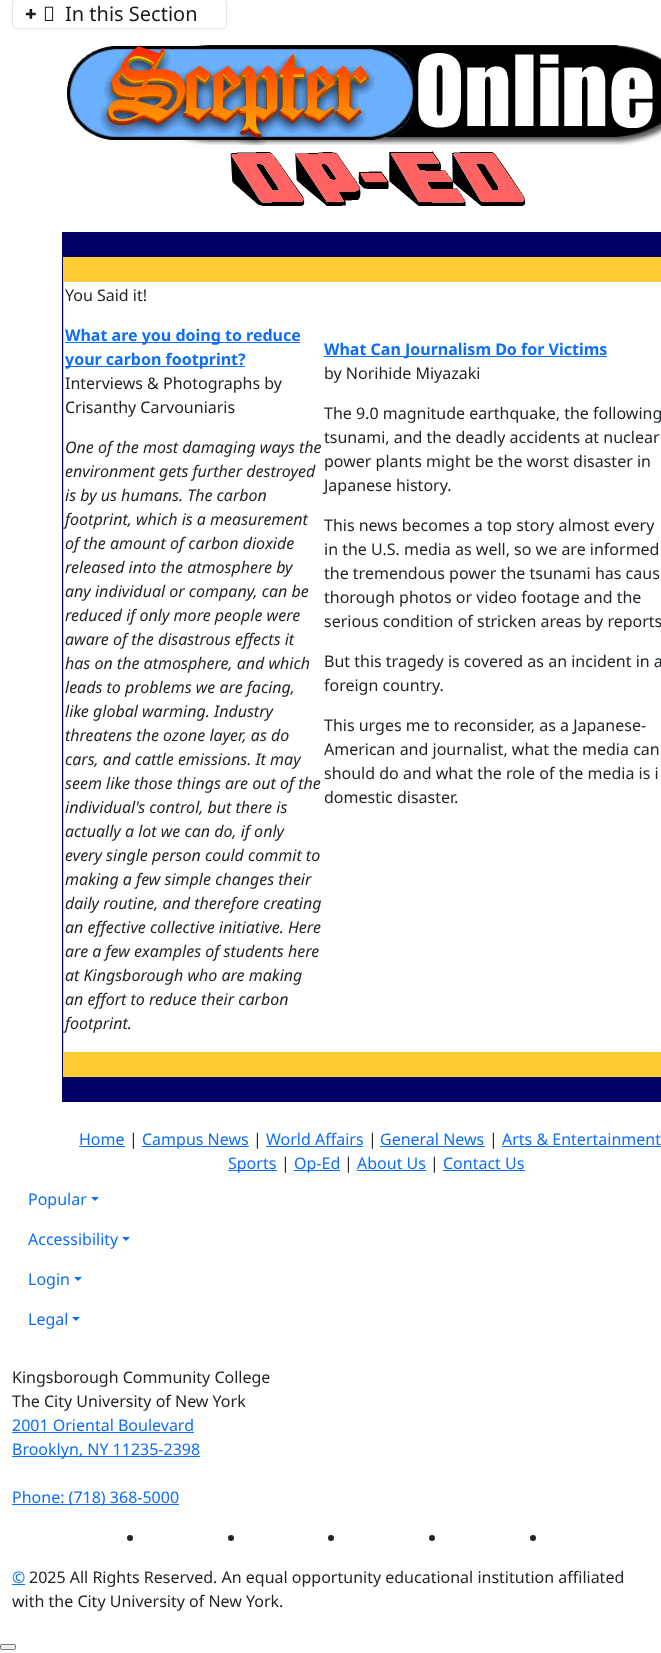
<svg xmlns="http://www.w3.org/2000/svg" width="661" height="1653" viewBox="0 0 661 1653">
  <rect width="100%" height="100%" fill="#fff"/>
  <rect x="12.5" y="-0.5" width="214" height="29" rx="3.5" fill="none" stroke="#e6e6e6"/>
  <image x="44" y="6" width="10" height="15" href="img/1.png"/>
  <image x="67" y="45" width="594" height="100" href="img/2.png"/>
  <image x="230" y="151" width="295" height="55" href="img/3.png"/>
  <path d="M62 232h599v870H62z" fill="#006"/>
  <path d="M63 257h598v820H63z" fill="#fc3"/>
  <path d="M64 282h597v770H64z" fill="#fff"/>
  <path d="M65 342h235v1H65z" fill="#0d6efd"/>
  <path d="M65 366h180v1H65z" fill="#0d6efd"/>
  <path d="M324 356h283v1H324z" fill="#0d6efd"/>
  <path d="M79 1146h46v1H79z" fill="#0d6efd"/>
  <path d="M142 1146h107v1H142z" fill="#0d6efd"/>
  <path d="M266 1146h97v1H266z" fill="#0d6efd"/>
  <path d="M380 1146h105v1H380z" fill="#0d6efd"/>
  <path d="M502 1146h159v1H502z" fill="#0d6efd"/>
  <path d="M228 1170h49v1H228z" fill="#0d6efd"/>
  <path d="M294 1170h46v1H294z" fill="#0d6efd"/>
  <path d="M357 1170h69v1H357z" fill="#0d6efd"/>
  <path d="M443 1170h82v1H443z" fill="#0d6efd"/>
  <path d="M91 1197H99L95 1201Z" fill="#0d6efd"/>
  <path d="M122 1237H130L126 1241Z" fill="#0d6efd"/>
  <path d="M74 1277H82L78 1281Z" fill="#0d6efd"/>
  <path d="M72 1317H80L76 1321Z" fill="#0d6efd"/>
  <path d="M12 1432h182v1H12z" fill="#0d6efd"/>
  <path d="M12 1456h188v1H12z" fill="#0d6efd"/>
  <path d="M12 1504h167v1H12z" fill="#0d6efd"/>
  <circle cx="130" cy="1538" r="3" fill="#212529"/>
  <circle cx="231" cy="1538" r="3" fill="#212529"/>
  <circle cx="331" cy="1538" r="3" fill="#212529"/>
  <circle cx="432" cy="1538" r="3" fill="#212529"/>
  <circle cx="533" cy="1538" r="3" fill="#212529"/>
  <path d="M12 1584h13v1H12z" fill="#0d6efd"/>
  <rect x="0.5" y="1644.5" width="15" height="5" rx="1.5" fill="#efefef" stroke="#767676"/>
  <text x="25" y="21" font-family="Noto Sans" font-size="20" font-weight="900" fill="#1a1a1a">+</text>
  <text x="65" y="21" font-family="Noto Sans" font-size="20" fill="#1a1a1a">In this Section</text>
  <text x="65" y="301" font-family="Noto Sans" font-size="16" fill="#212529">You Said it!</text>
  <g font-family="Noto Sans" font-size="16" font-weight="bold" fill="#0d6efd">
    <text x="65" y="341">What are you doing to reduce</text>
    <text x="65" y="365">your carbon footprint?</text>
  </g>
  <g font-family="Noto Sans" font-size="16" fill="#212529">
    <text x="65" y="389">Interviews &amp; Photographs by</text>
    <text x="65" y="413">Crisanthy Carvouniaris</text>
  </g>
  <g font-family="Noto Sans" font-size="16" font-style="italic" fill="#212529">
    <text x="65" y="453">One of the most damaging ways the</text>
    <text x="65" y="477">environment gets further destroyed</text>
    <text x="65" y="501">is by us humans. The carbon</text>
    <text x="65" y="525">footprint, which is a measurement</text>
    <text x="65" y="549">of the amount of carbon dioxide</text>
    <text x="65" y="573">released into the atmosphere by</text>
    <text x="65" y="597">any individual or company, can be</text>
    <text x="65" y="621">reduced if only more people were</text>
    <text x="65" y="645">aware of the disastrous effects it</text>
    <text x="65" y="669">has on the atmosphere, and which</text>
    <text x="65" y="693">leads to problems we are facing,</text>
    <text x="65" y="717">like global warming. Industry</text>
    <text x="65" y="741">threatens the ozone layer, as do</text>
    <text x="65" y="765">cars, and cattle emissions. It may</text>
    <text x="65" y="789">seem like those things are out of the</text>
    <text x="65" y="813">individual's control, but there is</text>
    <text x="65" y="837">actually a lot we can do, if only</text>
    <text x="65" y="861">every single person could commit to</text>
    <text x="65" y="885">making a few simple changes their</text>
    <text x="65" y="909">daily routine, and therefore creating</text>
    <text x="65" y="933">an effective collective initiative. Here</text>
    <text x="65" y="957">are a few examples of students here</text>
    <text x="65" y="981">at Kingsborough who are making</text>
    <text x="65" y="1005">an effort to reduce their carbon</text>
    <text x="65" y="1029">footprint.</text>
  </g>
  <text x="324" y="355" font-family="Noto Sans" font-size="16" font-weight="bold" fill="#0d6efd">What Can Journalism Do for Victims</text>
  <g font-family="Noto Sans" font-size="16" fill="#212529">
    <text x="324" y="379">by Norihide Miyazaki</text>
    <text x="324" y="419">The 9.0 magnitude earthquake, the following</text>
    <text x="324" y="443">tsunami, and the deadly accidents at nuclear</text>
    <text x="324" y="467">power plants might be the worst disaster in</text>
    <text x="324" y="491">Japanese history.</text>
    <text x="324" y="531">This news becomes a top story almost every</text>
    <text x="324" y="555">in the U.S. media as well, so we are informed</text>
    <text x="324" y="579">the tremendous power the tsunami has caus</text>
    <text x="324" y="603">thorough photos or video footage and the</text>
    <text x="324" y="627">serious condition of stricken areas by reports</text>
    <text x="324" y="667">But this tragedy is covered as an incident in a</text>
    <text x="324" y="691">foreign country.</text>
    <text x="324" y="731">This urges me to reconsider, as a Japanese-</text>
    <text x="324" y="755">American and journalist, what the media can</text>
    <text x="324" y="779">should do and what the role of the media is i</text>
    <text x="324" y="803">domestic disaster.</text>
  </g>
  <text x="79" y="1145" font-family="Noto Sans" font-size="16" fill="#0d6efd">Home</text>
  <text x="129" y="1145" font-family="Noto Sans" font-size="16" fill="#212529">|</text>
  <text x="142" y="1145" font-family="Noto Sans" font-size="16" fill="#0d6efd">Campus News</text>
  <text x="253" y="1145" font-family="Noto Sans" font-size="16" fill="#212529">|</text>
  <text x="266" y="1145" font-family="Noto Sans" font-size="16" fill="#0d6efd">World Affairs</text>
  <text x="368" y="1145" font-family="Noto Sans" font-size="16" fill="#212529">|</text>
  <text x="380" y="1145" font-family="Noto Sans" font-size="16" fill="#0d6efd">General News</text>
  <text x="489" y="1145" font-family="Noto Sans" font-size="16" fill="#212529">|</text>
  <g font-family="Noto Sans" font-size="16" fill="#0d6efd">
    <text x="502" y="1145">Arts &amp; Entertainment</text>
    <text x="228" y="1169">Sports</text>
  </g>
  <text x="281" y="1169" font-family="Noto Sans" font-size="16" fill="#212529">|</text>
  <text x="294" y="1169" font-family="Noto Sans" font-size="16" fill="#0d6efd">Op-Ed</text>
  <text x="344" y="1169" font-family="Noto Sans" font-size="16" fill="#212529">|</text>
  <text x="357" y="1169" font-family="Noto Sans" font-size="16" fill="#0d6efd">About Us</text>
  <text x="430" y="1169" font-family="Noto Sans" font-size="16" fill="#212529">|</text>
  <g font-family="Noto Sans" font-size="16" fill="#0d6efd">
    <text x="443" y="1169">Contact Us</text>
    <text x="28" y="1205">Popular</text>
    <text x="28" y="1245">Accessibility</text>
    <text x="28" y="1285">Login</text>
    <text x="28" y="1325">Legal</text>
  </g>
  <g font-family="Noto Sans" font-size="16" fill="#212529">
    <text x="12" y="1383">Kingsborough Community College</text>
    <text x="12" y="1407">The City University of New York</text>
  </g>
  <g font-family="Noto Sans" font-size="16" fill="#0d6efd">
    <text x="12" y="1431">2001 Oriental Boulevard</text>
    <text x="12" y="1455">Brooklyn, NY 11235-2398</text>
    <text x="12" y="1503">Phone: (718) 368-5000</text>
    <text x="12" y="1583">©</text>
  </g>
  <g font-family="Noto Sans" font-size="16" fill="#212529">
    <text x="29" y="1583">2025 All Rights Reserved. An equal opportunity educational institution affiliated</text>
    <text x="12" y="1607">with the City University of New York.</text>
  </g>
</svg>
